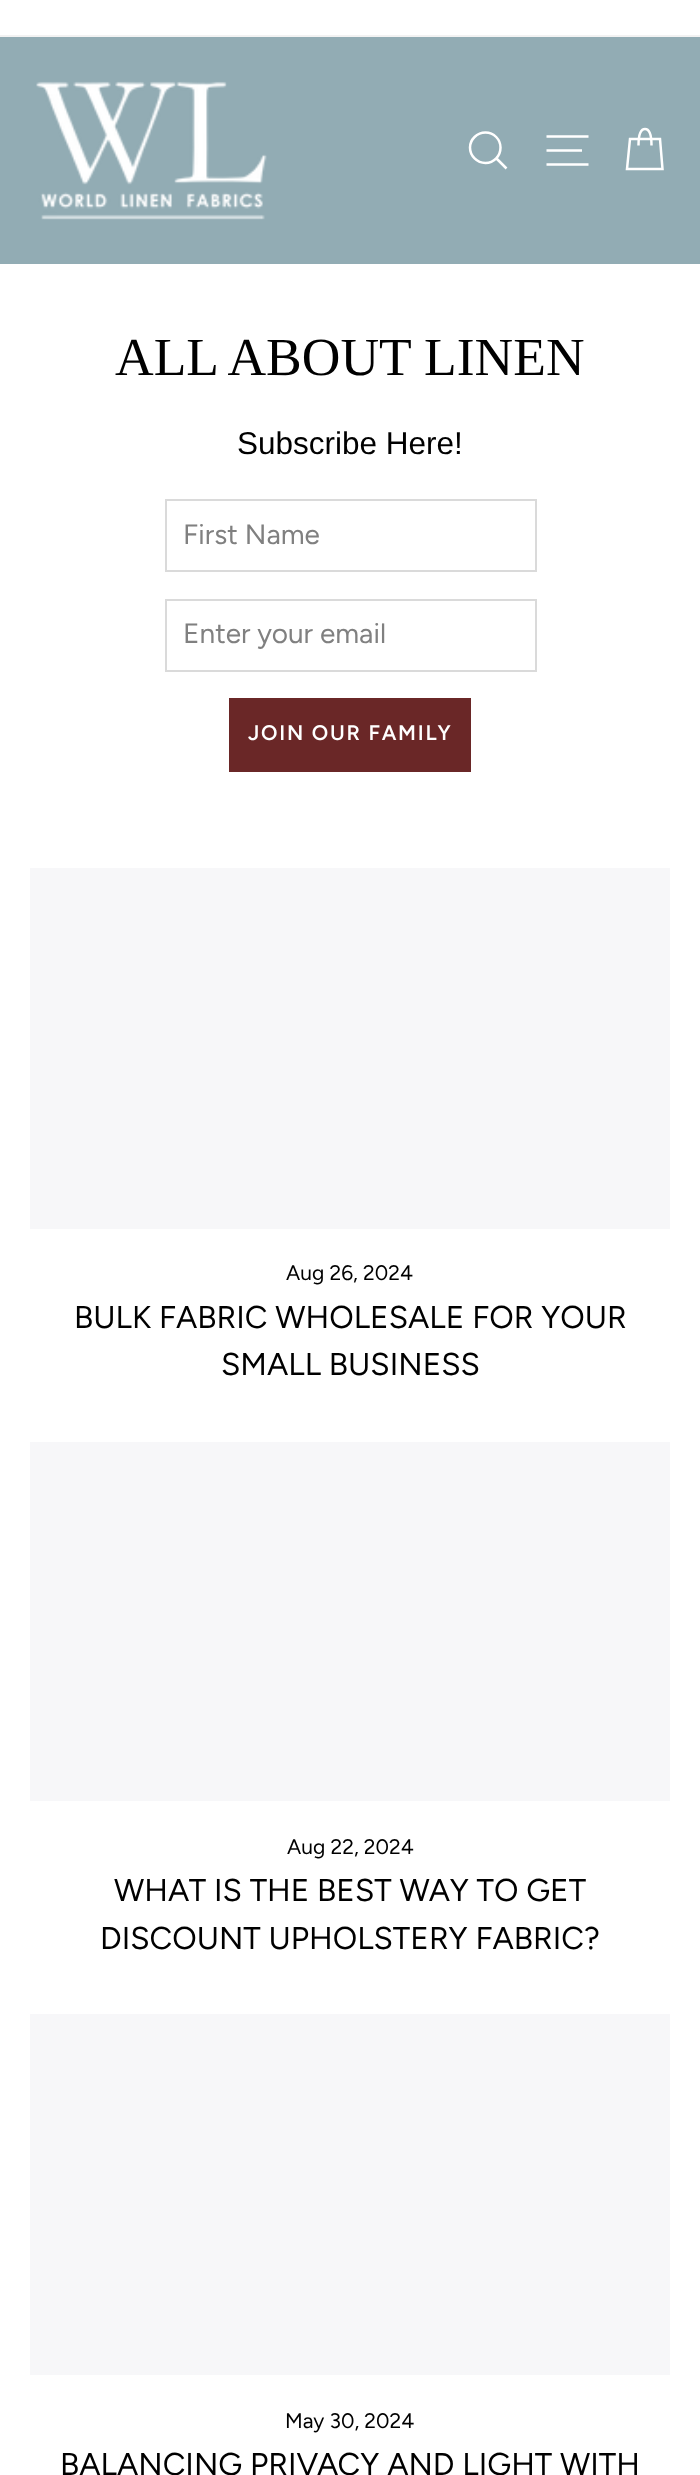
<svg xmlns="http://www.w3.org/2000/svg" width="700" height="2475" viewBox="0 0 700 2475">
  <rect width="100%" height="100%" fill="#fff"/>
  <path d="M0 35h700v2H0z" fill="#f2f2f2"/>
  <path d="M0 37h700v227H0z" fill="#92acb4"/>
  <image x="36" y="81" width="231" height="139" href="img/1.png"/>
  <path d="M500.5 147.5C500.5 156 494 163 485.5 163C477 163 470 156 470 147.5C470 139.5 477 132.5 485.5 132.5C494 132.5 500.5 139.5 500.5 147.5ZM506.5 168.5L496.5 158.5" fill="none" stroke="#fff" stroke-width="2.5"/>
  <path d="M546.5 136.5H588.5M546.5 150.5H582M546.5 164.5H588.5" fill="none" stroke="#fff" stroke-width="2.5"/>
  <path d="M638.5 145.5C638.5 132.5 641 129 645 129C648.5 129 651.5 132.5 651.5 145.5M630 139H660L662.5 169H627Z" fill="none" stroke="#fff" stroke-width="2.5"/>
  <path d="M166 500h370v71H166z" fill="none" stroke="#dadada" stroke-width="2"/>
  <path d="M166 600h370v71H166z" fill="none" stroke="#dadada" stroke-width="2"/>
  <path d="M229 698h242v74H229z" fill="#6a2727"/>
  <path d="M30 868h640v361H30z" fill="#f7f7f9"/>
  <path d="M30 1442h640v359H30z" fill="#f7f7f9"/>
  <path d="M30 2014h640v361H30z" fill="#f7f7f9"/>
  <text x="115" y="375" font-family="Liberation Serif" font-size="53.5" fill="#000">ALL ABOUT LINEN</text>
  <text x="237" y="454" font-family="Liberation Sans" font-size="31.5" fill="#000">Subscribe Here!</text>
  <g font-family="Figtree" font-size="28" fill="#808080">
    <text x="183" y="544">First Name</text>
    <text x="183" y="643">Enter your email</text>
  </g>
  <text x="248" y="740" font-family="Figtree" font-size="21" font-weight="600" letter-spacing="1.75" fill="#fff">JOIN OUR FAMILY</text>
  <text x="286" y="1280" font-family="Figtree" font-size="21" fill="#000">Aug 26, 2024</text>
  <g font-family="Figtree" font-size="31.5" fill="#000">
    <text x="74" y="1328">BULK FABRIC WHOLESALE FOR YOUR</text>
    <text x="221" y="1375">SMALL BUSINESS</text>
  </g>
  <text x="287" y="1854" font-family="Figtree" font-size="21" fill="#000">Aug 22, 2024</text>
  <g font-family="Figtree" font-size="31.5" fill="#000">
    <text x="114" y="1901">WHAT IS THE BEST WAY TO GET</text>
    <text x="100" y="1949">DISCOUNT UPHOLSTERY FABRIC?</text>
  </g>
  <text x="285" y="2428" font-family="Figtree" font-size="21" fill="#000">May 30, 2024</text>
  <text x="60" y="2475" font-family="Figtree" font-size="31.5" fill="#000">BALANCING PRIVACY AND LIGHT WITH</text>
</svg>
